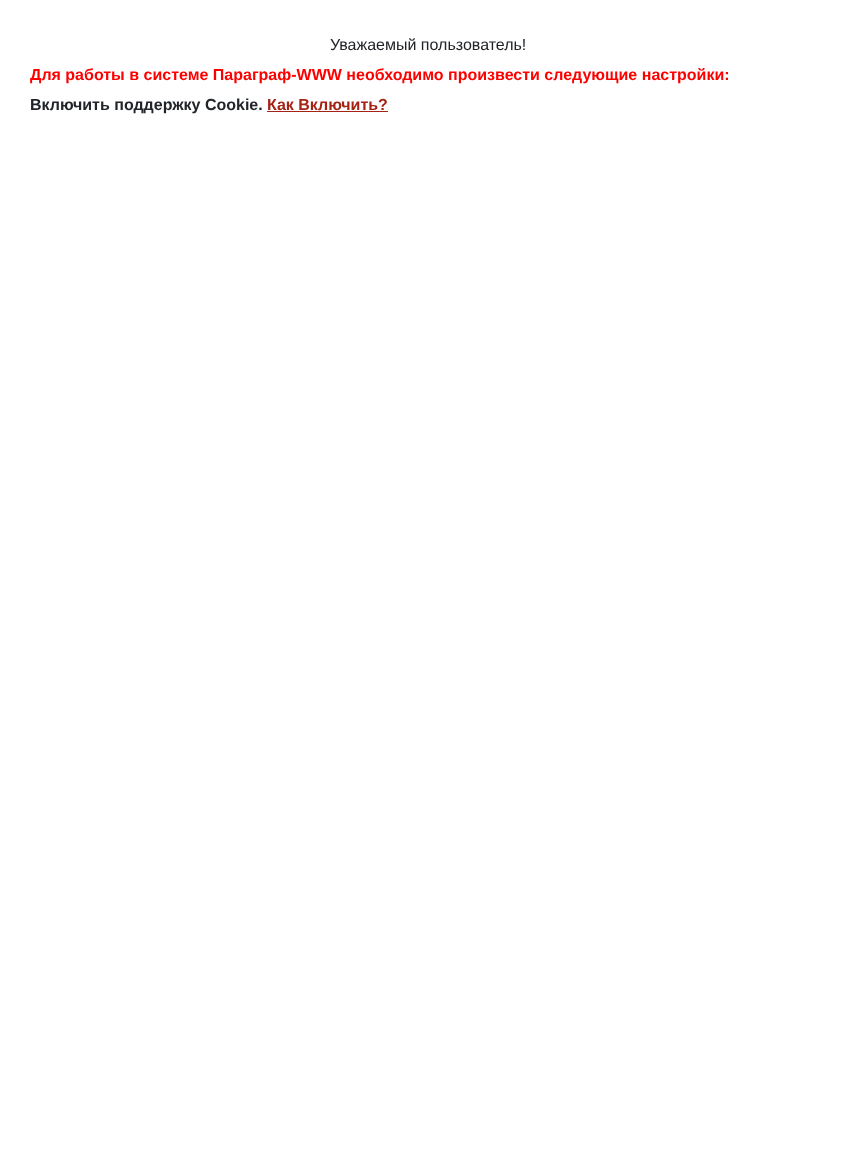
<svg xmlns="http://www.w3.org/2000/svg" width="856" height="1172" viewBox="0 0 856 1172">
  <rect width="100%" height="100%" fill="#fff"/>
  <path d="M267 111h121v1H267z" fill="#a52315"/>
  <text x="330" y="50" font-family="Liberation Sans" font-size="16" fill="#212529">Уважаемый пользователь!</text>
  <text x="30" y="80" font-family="Liberation Sans" font-size="16" font-weight="bold" fill="#f00">Для работы в системе Параграф-WWW необходимо произвести следующие настройки:</text>
  <text x="30" y="110" font-family="Liberation Sans" font-size="16" font-weight="bold" fill="#212529">Включить поддержку Cookie.</text>
  <text x="267" y="110" font-family="Liberation Sans" font-size="16" font-weight="bold" fill="#a52315">Как Включить?</text>
</svg>
